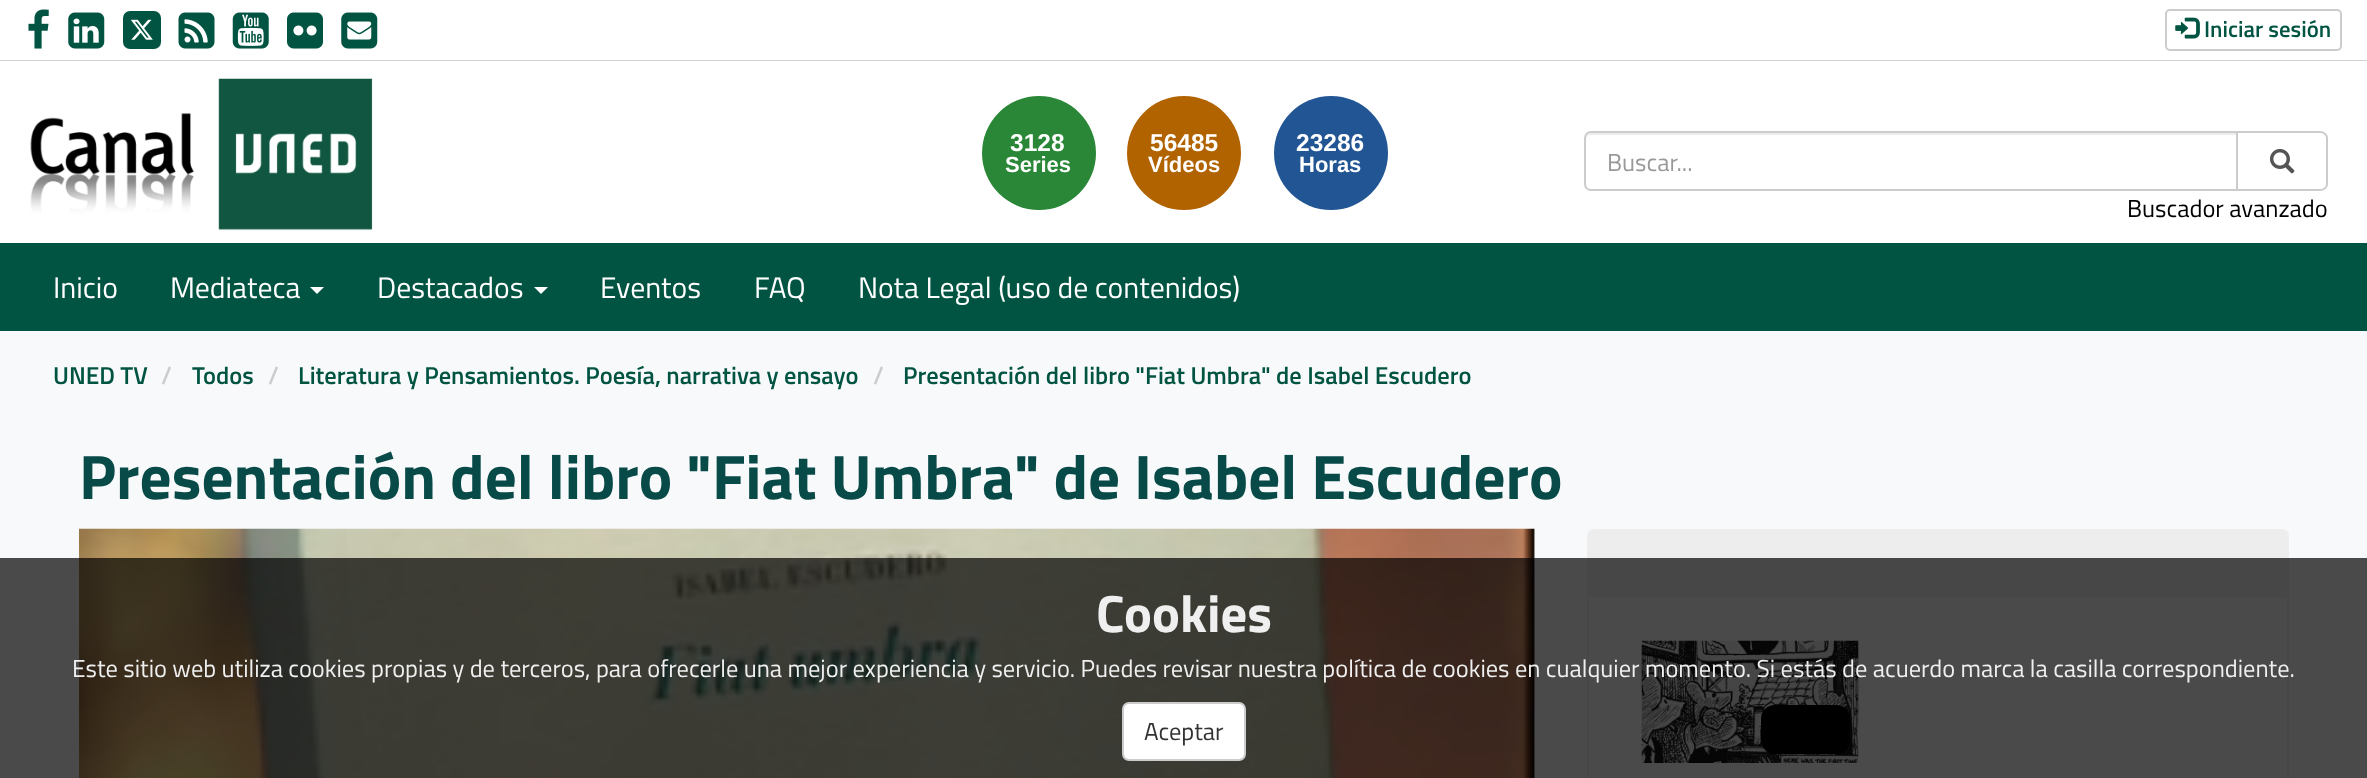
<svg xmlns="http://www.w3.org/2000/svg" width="2367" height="778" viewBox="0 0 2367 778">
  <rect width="100%" height="100%" fill="#fff"/>
  <path d="M0 60h2367v1H0z" fill="#d3d3d3"/>
  <image x="28" y="9" width="21" height="40" href="img/1.png"/>
  <image x="68" y="12" width="37" height="37" href="img/2.png"/>
  <rect x="123" y="11" width="38" height="38" rx="7" fill="#015442"/>
  <image x="178" y="12" width="37" height="37" href="img/3.png"/>
  <image x="232" y="12" width="37" height="37" href="img/4.png"/>
  <image x="287" y="12" width="36" height="37" href="img/5.png"/>
  <image x="341" y="12" width="37" height="37" href="img/6.png"/>
  <image x="130" y="19" width="23" height="21" href="img/7.png"/>
  <rect x="2166" y="10" width="175" height="40" rx="4" fill="none" stroke="#ccc" stroke-width="2"/>
  <image x="2175" y="17" width="25" height="22" href="img/8.png"/>
  <image x="30" y="78" width="343" height="153" href="img/9.png"/>
  <circle cx="1039" cy="153" r="57" fill="#2a8737"/>
  <circle cx="1184" cy="153" r="57" fill="#b16300"/>
  <circle cx="1331" cy="153" r="57" fill="#225594"/>
  <path d="M1591 135H2236V189H2237V133H1591C1588 133 1586 135 1586 138V140C1586 137 1588 135 1591 135Z" fill="#ececec"/>
  <path d="M1591 132H2237V190H1591C1587.5 190 1585 187.5 1585 184V138C1585 134.5 1587.5 132 1591 132Z" fill="none" stroke="#ccc" stroke-width="2"/>
  <path d="M2238 131H2320C2324 131 2328 134 2328 138V184C2328 188 2324 191 2320 191H2238ZM2238 133H2320C2323 133 2326 135 2326 138V184C2326 187 2323 189 2320 189H2238Z" fill="#ccc" fill-rule="evenodd"/>
  <image x="2270" y="149" width="25" height="25" href="img/10.png"/>
  <path d="M0 243h2367v88H0z" fill="#015442"/>
  <path d="M310 287H324L317 294Z" fill="#fff"/>
  <path d="M534 287H548L541 294Z" fill="#fff"/>
  <path d="M0 331h2367v447H0z" fill="#f8f9fa"/>
  <image x="79" y="528" width="1456" height="250" href="img/11.png"/>
  <rect x="1588" y="530" width="700" height="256" rx="6" fill="none" stroke="#ededed" stroke-width="2"/>
  <path d="M1594 530H2282C2285 530 2287 532 2287 535V597H1589V535C1589 532 1591 530 1594 530Z" fill="#ededed"/>
  <image x="1641" y="640" width="218" height="123" href="img/12.png"/>
  <rect x="1761" y="705" width="89" height="49" rx="14" fill="#000"/>
  <path d="M0 558h2367v220H0z" fill="#000000b3"/>
  <rect x="1123" y="703" width="122" height="57" rx="6" fill="#fff" stroke="#ccc" stroke-width="2"/>
  <text x="2204" y="37" font-family="Titillium Web" font-size="22.75" font-weight="600" fill="#015442">Iniciar sesión</text>
  <text x="1010" y="151" font-family="Liberation Sans" font-size="24.5" font-weight="bold" fill="#fff">3128</text>
  <text x="1005" y="172" font-family="Liberation Sans" font-size="22" font-weight="bold" fill="#fff">Series</text>
  <text x="1150" y="151" font-family="Liberation Sans" font-size="24.5" font-weight="bold" fill="#fff">56485</text>
  <text x="1148" y="172" font-family="Liberation Sans" font-size="22" font-weight="bold" fill="#fff">Vídeos</text>
  <text x="1296" y="151" font-family="Liberation Sans" font-size="24.5" font-weight="bold" fill="#fff">23286</text>
  <text x="1299" y="172" font-family="Liberation Sans" font-size="22" font-weight="bold" fill="#fff">Horas</text>
  <text x="1607" y="171" font-family="Titillium Web" font-size="24.5" fill="#999">Buscar...</text>
  <text x="2127" y="217" font-family="Titillium Web" font-size="24.5" fill="#000">Buscador avanzado</text>
  <g font-family="Titillium Web" font-size="29.75" fill="#fff">
    <text x="53" y="298">Inicio</text>
    <text x="170" y="298">Mediateca</text>
    <text x="377" y="298">Destacados</text>
    <text x="600" y="298">Eventos</text>
    <text x="754" y="298">FAQ</text>
    <text x="858" y="298">Nota Legal (uso de contenidos)</text>
  </g>
  <text x="53" y="384" font-family="Titillium Web" font-size="24.5" font-weight="600" fill="#015442">UNED TV</text>
  <text x="161" y="384" font-family="Titillium Web" font-size="24.5" font-weight="600" fill="#ccc">/</text>
  <text x="192" y="384" font-family="Titillium Web" font-size="24.5" font-weight="600" fill="#015442">Todos</text>
  <text x="268" y="384" font-family="Titillium Web" font-size="24.5" font-weight="600" fill="#ccc">/</text>
  <text x="298" y="384" font-family="Titillium Web" font-size="24.5" font-weight="600" fill="#015442">Literatura y Pensamientos. Poesía, narrativa y ensayo</text>
  <text x="873" y="384" font-family="Titillium Web" font-size="24.5" font-weight="600" fill="#ccc">/</text>
  <text x="903" y="384" font-family="Titillium Web" font-size="24.5" font-weight="600" fill="#015442">Presentación del libro "Fiat Umbra" de Isabel Escudero</text>
  <text x="79" y="499" font-family="Titillium Web" font-size="63" font-weight="bold" fill="#084a48">Presentación del libro "Fiat Umbra" de Isabel Escudero</text>
  <text x="1096" y="632" font-family="Titillium Web" font-size="52.5" font-weight="bold" fill="#efefef">Cookies</text>
  <text x="72" y="677" font-family="Titillium Web" font-size="24.5" fill="#efefef">Este sitio web utiliza cookies propias y de terceros, para ofrecerle una mejor experiencia y servicio. Puedes revisar nuestra política de cookies en cualquier momento. Si estás de acuerdo marca la casilla correspondiente.</text>
  <text x="1144" y="740" font-family="Titillium Web" font-size="24.5" fill="#333">Aceptar</text>
</svg>
